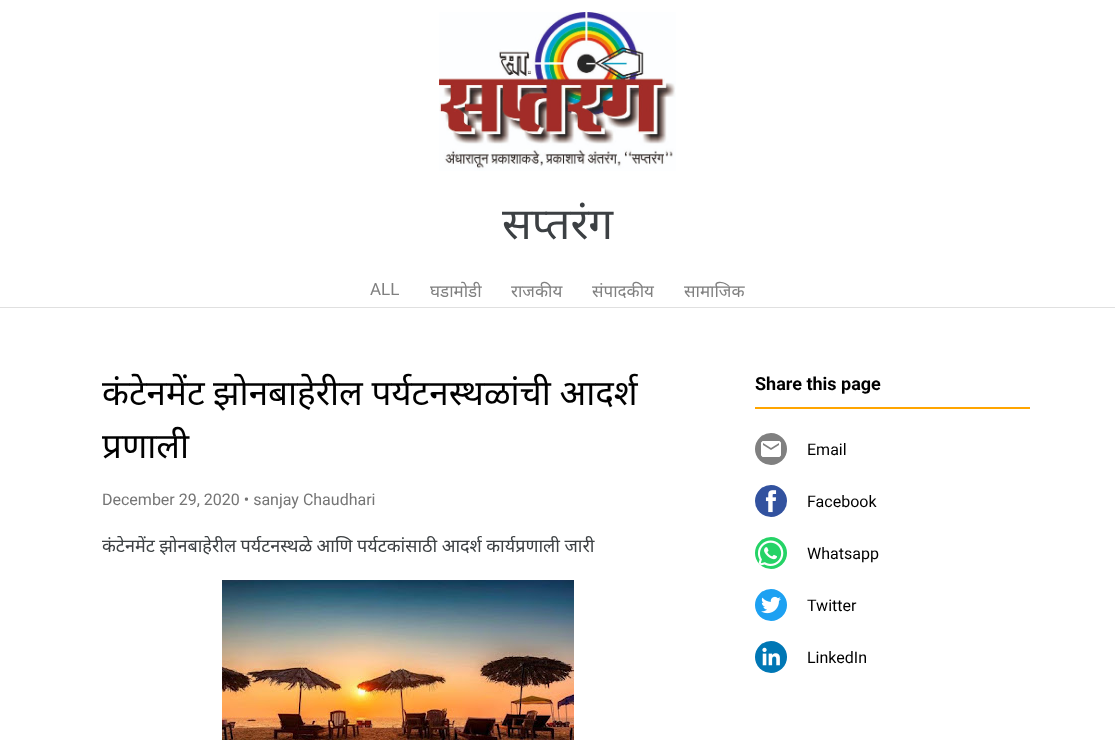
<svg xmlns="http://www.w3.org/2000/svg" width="1115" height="740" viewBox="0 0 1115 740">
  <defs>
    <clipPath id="clip1"><path d="M102 368h593v105H102z"/></clipPath>
  </defs>
  <rect width="100%" height="100%" fill="#fff"/>
  <path d="M0 307h1115v1H0z" fill="#e0e0e0"/>
  <image x="439" y="12" width="237" height="159" href="img/1.png"/>
  <image x="222" y="580" width="352" height="160" href="img/2.png"/>
  <path d="M755 407h275v2H755z" fill="#ffa500"/>
  <circle cx="771" cy="449" r="16" fill="#808080"/>
  <image x="761" y="441" width="20" height="16" href="img/3.png"/>
  <circle cx="771" cy="501" r="16" fill="#32529f"/>
  <image x="765" y="490" width="12" height="23" href="img/4.png"/>
  <circle cx="771" cy="553" r="16" fill="#25d366"/>
  <image x="757" y="540" width="27" height="26" href="img/5.png"/>
  <circle cx="771" cy="605" r="16" fill="#1da1f2"/>
  <image x="761" y="596" width="20" height="18" href="img/6.png"/>
  <circle cx="771" cy="657" r="16" fill="#0077b5"/>
  <image x="762" y="647" width="18" height="19" href="img/7.png"/>
  <text x="502" y="239" font-family="Noto Sans" font-size="44" fill="#3c4043">सप्तरंग</text>
  <text x="370" y="295" font-family="Roboto" font-size="17" fill="#808080">ALL</text>
  <g font-family="Noto Sans" font-size="17" fill="#808080">
    <text x="430" y="297">घडामोडी</text>
    <text x="511" y="297">राजकीय</text>
    <text x="592" y="297">संपादकीय</text>
    <text x="684" y="297">सामाजिक</text>
  </g>
  <g clip-path="url(#clip1)">
    <g font-family="Noto Sans" font-size="35" fill="#000">
      <text x="102" y="405" word-spacing="-0.5">कंटेनमेंट झोनबाहेरील पर्यटनस्थळांची आदर्श</text>
      <text x="102" y="458">प्रणाली</text>
    </g>
  </g>
  <text x="102" y="505" font-family="Roboto" font-size="16" fill="#757575">December 29, 2020 • sanjay Chaudhari</text>
  <text x="102" y="552" word-spacing="-0.25" font-family="Noto Sans" font-size="18" fill="#3c4043">कंटेनमेंट झोनबाहेरील पर्यटनस्थळे आणि पर्यटकांसाठी आदर्श कार्यप्रणाली जारी</text>
  <text x="755" y="390" font-family="Roboto" font-size="18" font-weight="bold" fill="#000">Share this page</text>
  <g font-family="Roboto" font-size="16" fill="#000">
    <text x="807" y="455">Email</text>
    <text x="807" y="507">Facebook</text>
    <text x="807" y="559">Whatsapp</text>
    <text x="807" y="611">Twitter</text>
    <text x="807" y="663">LinkedIn</text>
  </g>
</svg>
